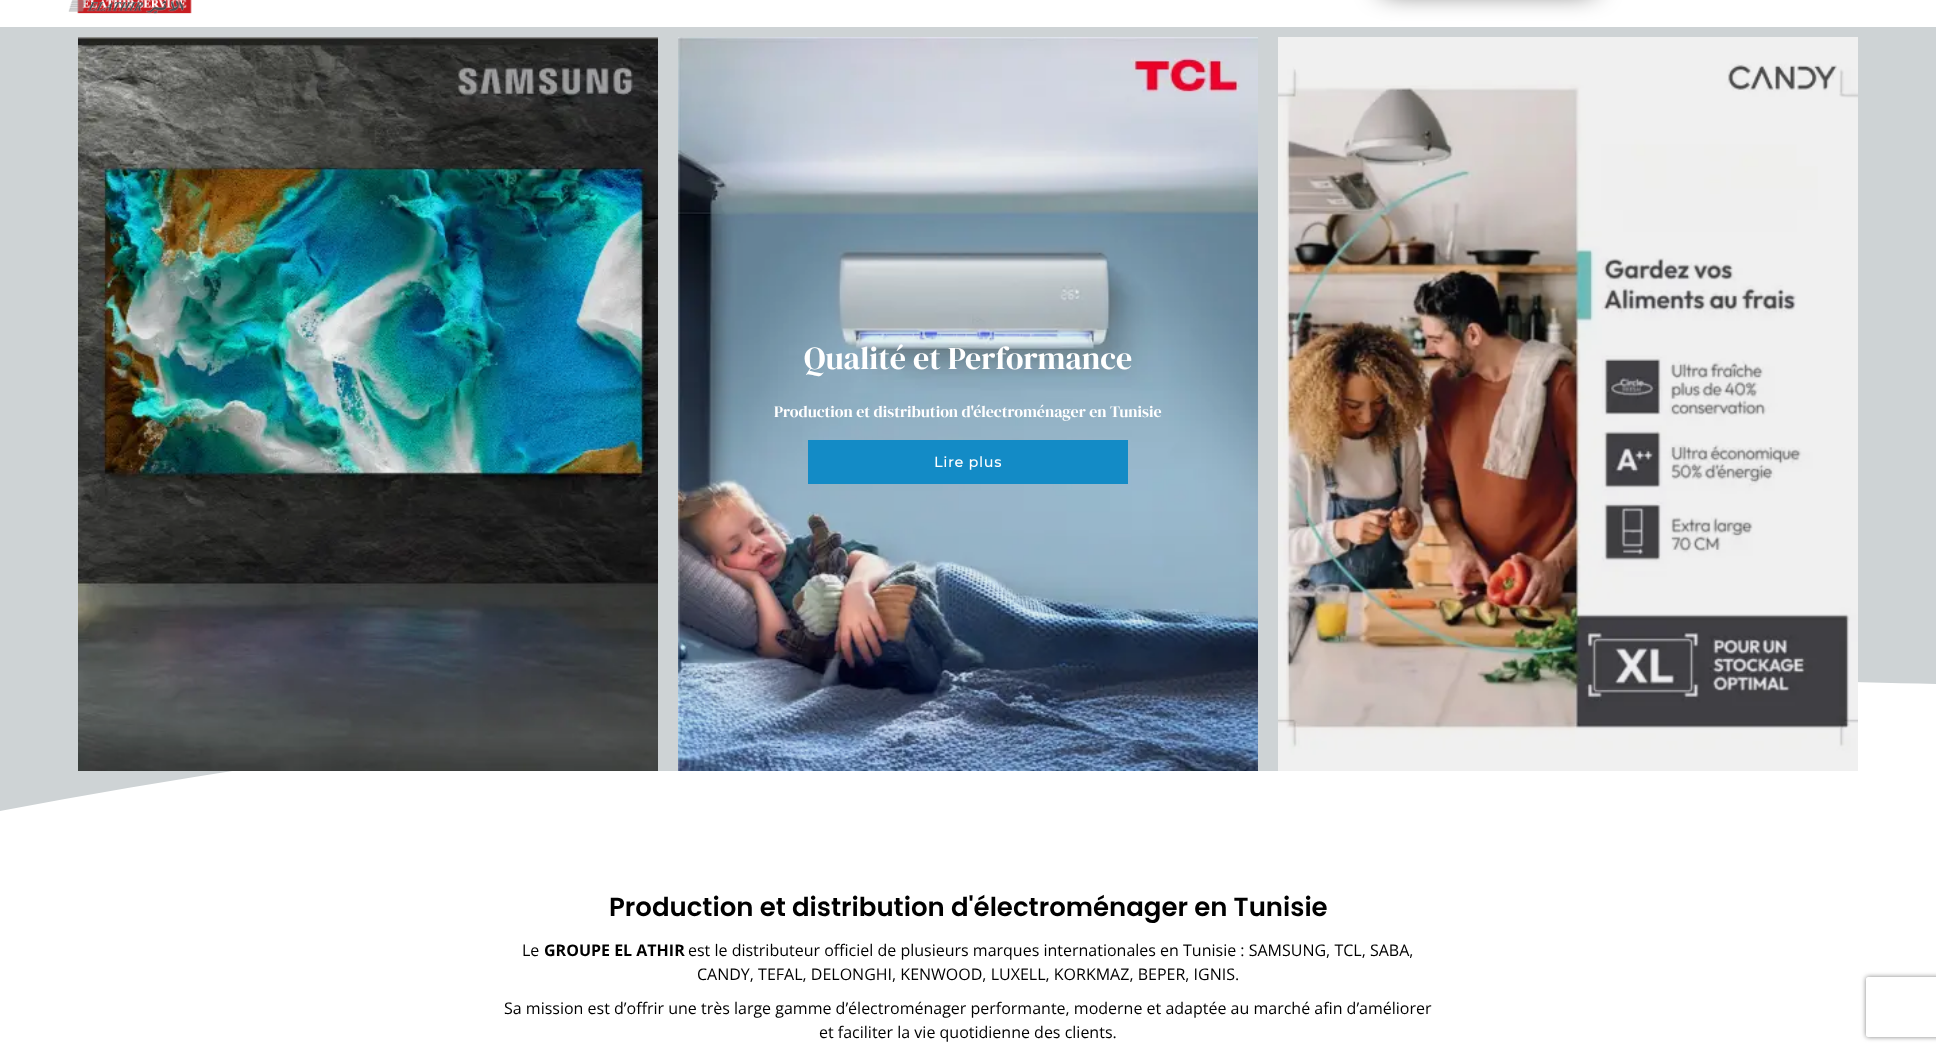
<svg xmlns="http://www.w3.org/2000/svg" width="1936" height="1051" viewBox="0 0 1936 1051">
  <defs>
    <clipPath id="clip1"><path d="M0 677h1936v150H0z"/></clipPath>
    <clipPath id="clip2"><path d="M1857 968H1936V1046H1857ZM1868 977H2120C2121 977 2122 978 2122 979V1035C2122 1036 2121 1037 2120 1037H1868C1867 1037 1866 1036 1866 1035V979C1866 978 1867 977 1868 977Z" clip-rule="evenodd"/></clipPath>
  </defs>
  <rect width="100%" height="100%" fill="#fff"/>
  <image x="77" y="0" width="115" height="14" href="img/2.png"/>
  <image x="68" y="0" width="116" height="14" href="img/1.png"/>
  <path d="M0 27h1936v784H0z" fill="#ced3d5"/>
  <rect x="1381" y="-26" width="214" height="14" rx="7" fill="#000" filter="blur(14px)"/>
  <g clip-path="url(#clip1)">
    <path d="M0 829H1936V684C1609 677 876 645 0 811Z" fill="#fff"/>
  </g>
  <path d="M658 679h620v92H658z" fill="#ced3d5"/>
  <image x="78" y="37" width="580" height="734" href="img/3.png"/>
  <image x="678" y="37" width="580" height="734" href="img/4.png"/>
  <path d="M808 440h320v44H808z" fill="#138bc6"/>
  <image x="1278" y="37" width="580" height="734" href="img/5.png"/>
  <g clip-path="url(#clip2)">
    <rect x="1866" y="977" width="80" height="60" rx="2" fill="#808080" filter="blur(2.5px)"/>
  </g>
  <text x="804" y="369" font-family="DM Serif Display" font-size="32" fill="#fff">Qualité et Performance</text>
  <text x="774" y="417" font-family="DM Serif Display" font-size="16" fill="#fff">Production et distribution d'électroménager en Tunisie</text>
  <text x="934" y="467" font-family="Montserrat" font-size="14" font-weight="bold" letter-spacing="1" fill="#fff">Lire plus</text>
  <text x="609" y="916" font-family="Poppins" font-size="26" font-weight="600" fill="#000">Production et distribution d'électroménager en Tunisie</text>
  <text x="522" y="956" font-family="Open Sans" font-size="16" fill="#000">Le</text>
  <text x="544" y="956" font-family="Open Sans" font-size="16" font-weight="bold" fill="#000">GROUPE EL ATHIR</text>
  <g font-family="Open Sans" font-size="16" fill="#000">
    <text x="688" y="956">est le distributeur officiel de plusieurs marques internationales en Tunisie : SAMSUNG, TCL, SABA,</text>
    <text x="697" y="980">CANDY, TEFAL, DELONGHI, KENWOOD, LUXELL, KORKMAZ, BEPER, IGNIS.</text>
    <text x="504" y="1014">Sa mission est d’offrir une très large gamme d’électroménager performante, moderne et adaptée au marché afin d’améliorer</text>
    <text x="819" y="1038">et faciliter la vie quotidienne des clients.</text>
  </g>
</svg>
